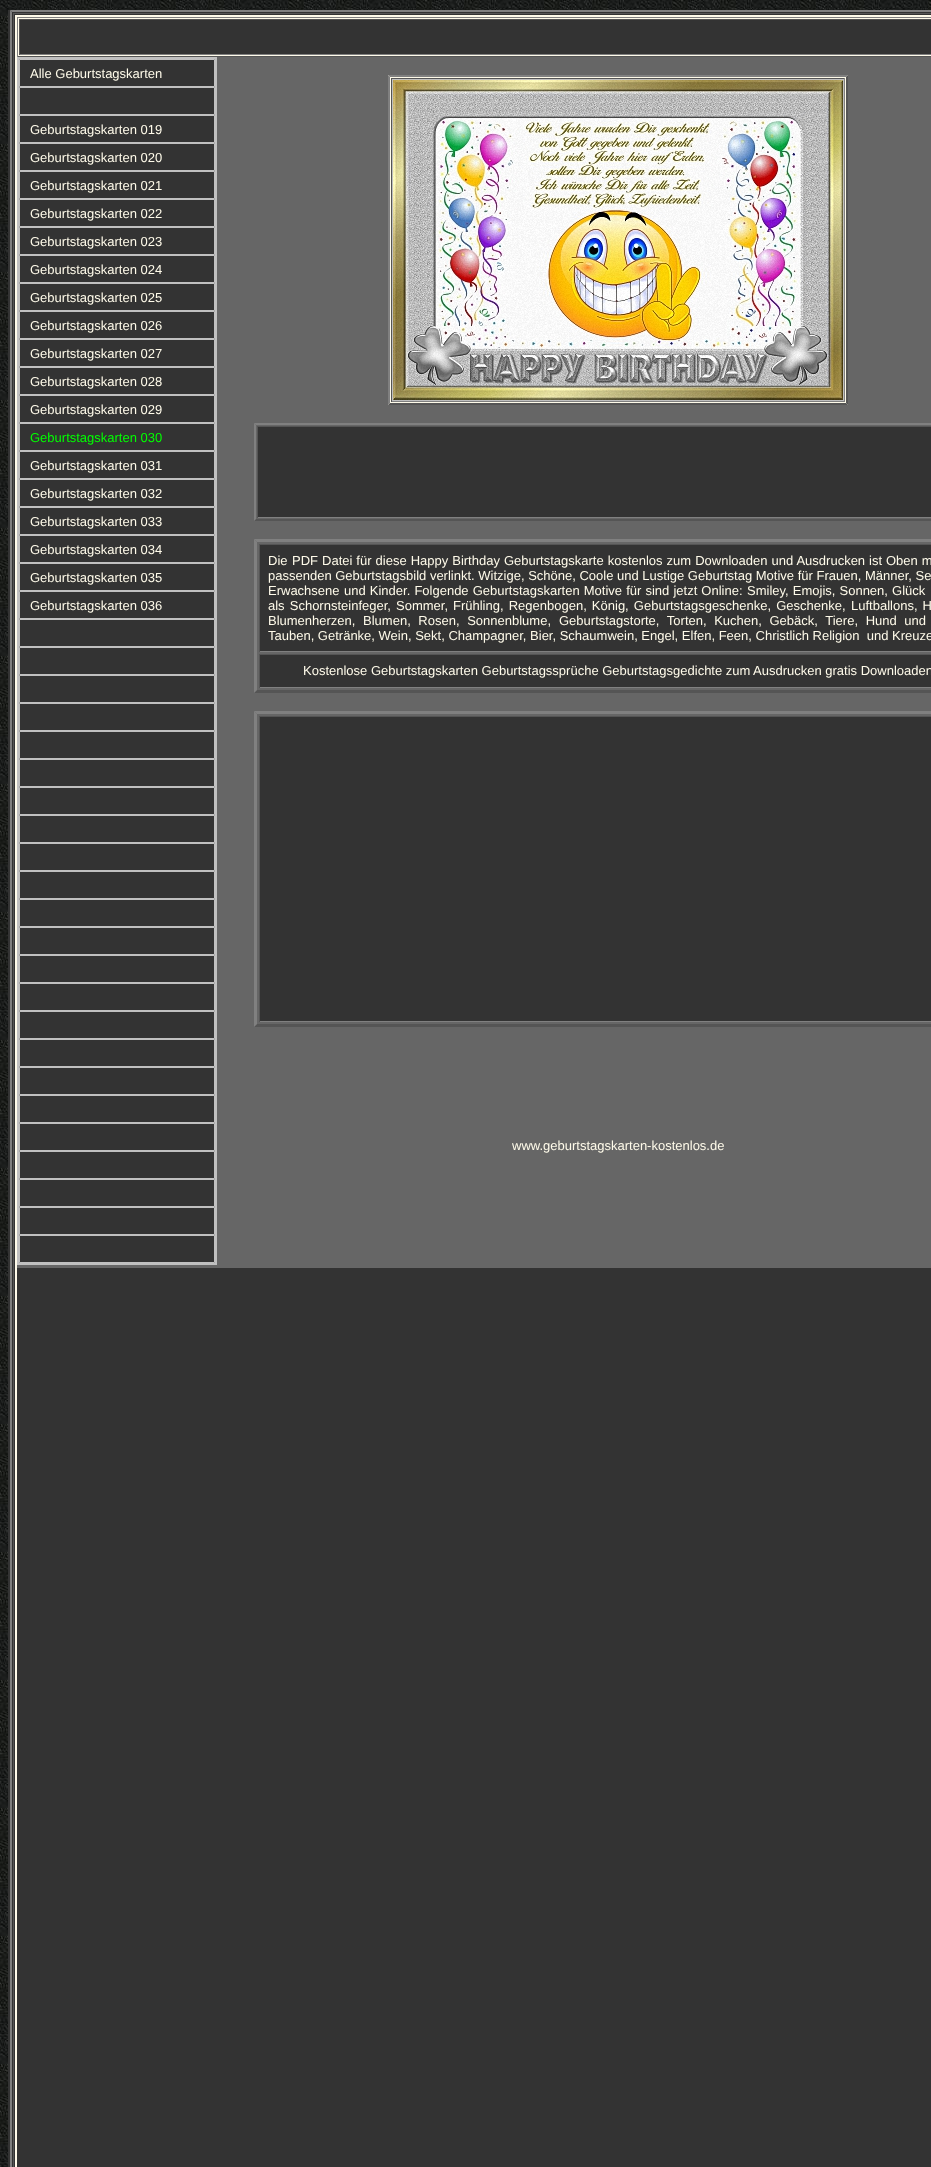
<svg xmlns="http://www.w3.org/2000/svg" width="931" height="2167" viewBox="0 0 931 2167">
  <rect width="100%" height="100%" fill="#fff"/>
  <image x="0" y="0" width="931" height="2167" href="img/1.png"/>
  <path d="M8 10h923v2157H8z" fill="#333"/>
  <path d="M10 10H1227L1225 12H12Z" fill="#808080"/>
  <path d="M10 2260V10L12 12V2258Z" fill="#808080"/>
  <path d="M13 13h918v1H13z" fill="#555"/>
  <path d="M13 13h1v2154H13z" fill="#555"/>
  <path d="M15 15h916v2152H15z" fill="#fffbea"/>
  <path d="M17 57h914v1211H17z" fill="#666"/>
  <path d="M17 17h914v1H17z" fill="#808080"/>
  <path d="M17 56h914v1H17z" fill="#555"/>
  <path d="M17 17h1v40H17z" fill="#808080"/>
  <path d="M20 20h911v34H20z" fill="#333"/>
  <path d="M19 19h912v1H19z" fill="#555"/>
  <path d="M19 54h912v1H19z" fill="#808080"/>
  <path d="M19 19h1v36H19z" fill="#555"/>
  <path d="M18 58h198v1206H18z" fill="none" stroke="#c0c0c0" stroke-width="2"/>
  <path d="M19.5 59.5h195v27H19.5z" fill="#333" stroke="#c0c0c0"/>
  <path d="M19.5 87.5h195v27H19.5z" fill="#333" stroke="#c0c0c0"/>
  <path d="M19.5 115.5h195v27H19.5z" fill="#333" stroke="#c0c0c0"/>
  <path d="M19.5 143.5h195v27H19.5z" fill="#333" stroke="#c0c0c0"/>
  <path d="M19.5 171.5h195v27H19.5z" fill="#333" stroke="#c0c0c0"/>
  <path d="M19.5 199.5h195v27H19.5z" fill="#333" stroke="#c0c0c0"/>
  <path d="M19.5 227.5h195v27H19.5z" fill="#333" stroke="#c0c0c0"/>
  <path d="M19.5 255.5h195v27H19.5z" fill="#333" stroke="#c0c0c0"/>
  <path d="M19.5 283.5h195v27H19.5z" fill="#333" stroke="#c0c0c0"/>
  <path d="M19.5 311.5h195v27H19.5z" fill="#333" stroke="#c0c0c0"/>
  <path d="M19.5 339.5h195v27H19.5z" fill="#333" stroke="#c0c0c0"/>
  <path d="M19.5 367.5h195v27H19.5z" fill="#333" stroke="#c0c0c0"/>
  <path d="M19.5 395.5h195v27H19.5z" fill="#333" stroke="#c0c0c0"/>
  <path d="M19.5 423.5h195v27H19.5z" fill="#333" stroke="#c0c0c0"/>
  <path d="M19.5 451.5h195v27H19.5z" fill="#333" stroke="#c0c0c0"/>
  <path d="M19.5 479.5h195v27H19.5z" fill="#333" stroke="#c0c0c0"/>
  <path d="M19.5 507.5h195v27H19.5z" fill="#333" stroke="#c0c0c0"/>
  <path d="M19.5 535.5h195v27H19.5z" fill="#333" stroke="#c0c0c0"/>
  <path d="M19.5 563.5h195v27H19.5z" fill="#333" stroke="#c0c0c0"/>
  <path d="M19.5 591.5h195v27H19.5z" fill="#333" stroke="#c0c0c0"/>
  <path d="M19.5 619.5h195v27H19.5z" fill="#333" stroke="#c0c0c0"/>
  <path d="M19.5 647.5h195v27H19.5z" fill="#333" stroke="#c0c0c0"/>
  <path d="M19.5 675.5h195v27H19.5z" fill="#333" stroke="#c0c0c0"/>
  <path d="M19.5 703.5h195v27H19.5z" fill="#333" stroke="#c0c0c0"/>
  <path d="M19.5 731.5h195v27H19.5z" fill="#333" stroke="#c0c0c0"/>
  <path d="M19.5 759.5h195v27H19.5z" fill="#333" stroke="#c0c0c0"/>
  <path d="M19.5 787.5h195v27H19.5z" fill="#333" stroke="#c0c0c0"/>
  <path d="M19.5 815.5h195v27H19.5z" fill="#333" stroke="#c0c0c0"/>
  <path d="M19.5 843.5h195v27H19.5z" fill="#333" stroke="#c0c0c0"/>
  <path d="M19.5 871.5h195v27H19.5z" fill="#333" stroke="#c0c0c0"/>
  <path d="M19.5 899.5h195v27H19.5z" fill="#333" stroke="#c0c0c0"/>
  <path d="M19.5 927.5h195v27H19.5z" fill="#333" stroke="#c0c0c0"/>
  <path d="M19.5 955.5h195v27H19.5z" fill="#333" stroke="#c0c0c0"/>
  <path d="M19.5 983.5h195v27H19.5z" fill="#333" stroke="#c0c0c0"/>
  <path d="M19.5 1011.5h195v27H19.5z" fill="#333" stroke="#c0c0c0"/>
  <path d="M19.5 1039.5h195v27H19.5z" fill="#333" stroke="#c0c0c0"/>
  <path d="M19.5 1067.5h195v27H19.5z" fill="#333" stroke="#c0c0c0"/>
  <path d="M19.5 1095.5h195v27H19.5z" fill="#333" stroke="#c0c0c0"/>
  <path d="M19.5 1123.5h195v27H19.5z" fill="#333" stroke="#c0c0c0"/>
  <path d="M19.5 1151.5h195v27H19.5z" fill="#333" stroke="#c0c0c0"/>
  <path d="M19.5 1179.5h195v27H19.5z" fill="#333" stroke="#c0c0c0"/>
  <path d="M19.5 1207.5h195v27H19.5z" fill="#333" stroke="#c0c0c0"/>
  <path d="M19.5 1235.5h195v27H19.5z" fill="#333" stroke="#c0c0c0"/>
  <path d="M388 75h460v330H388z" fill="#fffbea"/>
  <path d="M388 75H848L846 77H390Z" fill="#808080"/>
  <path d="M848 75V405L846 403V77Z" fill="#555"/>
  <path d="M848 405H388L390 403H846Z" fill="#555"/>
  <path d="M388 405V75L390 77V403Z" fill="#808080"/>
  <path d="M392 79h452v322H392z" fill="#c0c0c0"/>
  <path d="M391 78h454v1H391z" fill="#555"/>
  <path d="M844 78h1v324H844z" fill="#808080"/>
  <path d="M391 401h454v1H391z" fill="#808080"/>
  <path d="M391 78h1v324H391z" fill="#555"/>
  <image x="393" y="80" width="450" height="320" href="img/2.png"/>
  <path d="M254 423H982L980 425H256Z" fill="#808080"/>
  <path d="M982 521H254L256 519H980Z" fill="#555"/>
  <path d="M254 521V423L256 425V519Z" fill="#808080"/>
  <path d="M258 427h673v90H258z" fill="#333"/>
  <path d="M257 426h674v1H257z" fill="#555"/>
  <path d="M257 517h674v1H257z" fill="#808080"/>
  <path d="M257 426h1v92H257z" fill="#555"/>
  <path d="M254 539H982L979 542H257Z" fill="#808080"/>
  <path d="M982 693H254L257 690H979Z" fill="#555"/>
  <path d="M254 693V539L257 542V690Z" fill="#808080"/>
  <path d="M260 545h671v106H260z" fill="#333"/>
  <path d="M259 544h672v1H259z" fill="#555"/>
  <path d="M259 651h672v1H259z" fill="#808080"/>
  <path d="M259 544h1v108H259z" fill="#555"/>
  <path d="M260 655h671v32H260z" fill="#333"/>
  <path d="M259 654h672v1H259z" fill="#555"/>
  <path d="M259 687h672v1H259z" fill="#808080"/>
  <path d="M259 654h1v34H259z" fill="#555"/>
  <path d="M254 711H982L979 714H257Z" fill="#808080"/>
  <path d="M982 1027H254L257 1024H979Z" fill="#555"/>
  <path d="M254 1027V711L257 714V1024Z" fill="#808080"/>
  <path d="M260 717h671v304H260z" fill="#333"/>
  <path d="M259 716h672v1H259z" fill="#555"/>
  <path d="M259 1021h672v1H259z" fill="#808080"/>
  <path d="M259 716h1v306H259z" fill="#555"/>
  <path d="M17 1268h914v899H17z" fill="#333"/>
  <g font-family="Liberation Sans" font-size="13" fill="#fffbea">
    <text x="30" y="78">Alle Geburtstagskarten</text>
    <text x="30" y="134">Geburtstagskarten 019</text>
    <text x="30" y="162">Geburtstagskarten 020</text>
    <text x="30" y="190">Geburtstagskarten 021</text>
    <text x="30" y="218">Geburtstagskarten 022</text>
    <text x="30" y="246">Geburtstagskarten 023</text>
    <text x="30" y="274">Geburtstagskarten 024</text>
    <text x="30" y="302">Geburtstagskarten 025</text>
    <text x="30" y="330">Geburtstagskarten 026</text>
    <text x="30" y="358">Geburtstagskarten 027</text>
    <text x="30" y="386">Geburtstagskarten 028</text>
    <text x="30" y="414">Geburtstagskarten 029</text>
  </g>
  <text x="30" y="442" font-family="Liberation Sans" font-size="13" fill="#0f0">Geburtstagskarten 030</text>
  <g font-family="Liberation Sans" font-size="13" fill="#fffbea">
    <text x="30" y="470">Geburtstagskarten 031</text>
    <text x="30" y="498">Geburtstagskarten 032</text>
    <text x="30" y="526">Geburtstagskarten 033</text>
    <text x="30" y="554">Geburtstagskarten 034</text>
    <text x="30" y="582">Geburtstagskarten 035</text>
    <text x="30" y="610">Geburtstagskarten 036</text>
    <text x="268" y="565">Die</text>
    <text x="292" y="565" word-spacing="0.4">PDF Datei für diese Happy Birthday Geburtstagskarte kostenlos zum Downloaden und Ausdrucken</text>
    <text x="869" y="565" word-spacing="0.4">ist Oben m</text>
    <text x="268" y="580">passenden Geburtstagsbild verlinkt. Witzige, Schöne, Coole und Lustige Geburtstag Motive für Frauen, Männer, Se</text>
    <text x="268" y="595">Erwachsene</text>
    <text x="344" y="595" word-spacing="0.5">und Kinder. Folgende Geburtstagskarten Motive für sind jetzt Online:</text>
    <text x="747" y="595" word-spacing="0.5">Smiley, Emojis, Sonnen, Glück</text>
    <text x="268" y="610" word-spacing="1.5">als Schornsteinfeger, Sommer,</text>
    <text x="453" y="610" word-spacing="1.5">Frühling, Regenbogen, König, Geburtstagsgeschenke, Geschenke,</text>
    <text x="851" y="610" word-spacing="1.5">Luftballons, H</text>
    <text x="268" y="625" word-spacing="4">Blumenherzen, Blumen, Rosen, Sonnenblume,</text>
    <text x="559" y="625" word-spacing="4">Geburtstagstorte, Torten, Kuchen, Gebäck, Tiere, Hund und</text>
    <text x="268" y="640" xml:space="preserve">Tauben, Getränke, Wein, Sekt, Champagner, Bier, Schaumwein, Engel, Elfen, Feen, Christlich Religion  und Kreuze</text>
    <text x="303" y="675">Kostenlose</text>
    <text x="371" y="675">Geburtstagskarten Geburtstagssprüche Geburtstagsgedichte zum</text>
    <text x="753" y="675">Ausdrucken gratis Downloaden</text>
    <text x="512" y="1150">www.geburtstagskarten-kostenlos.de</text>
  </g>
</svg>
